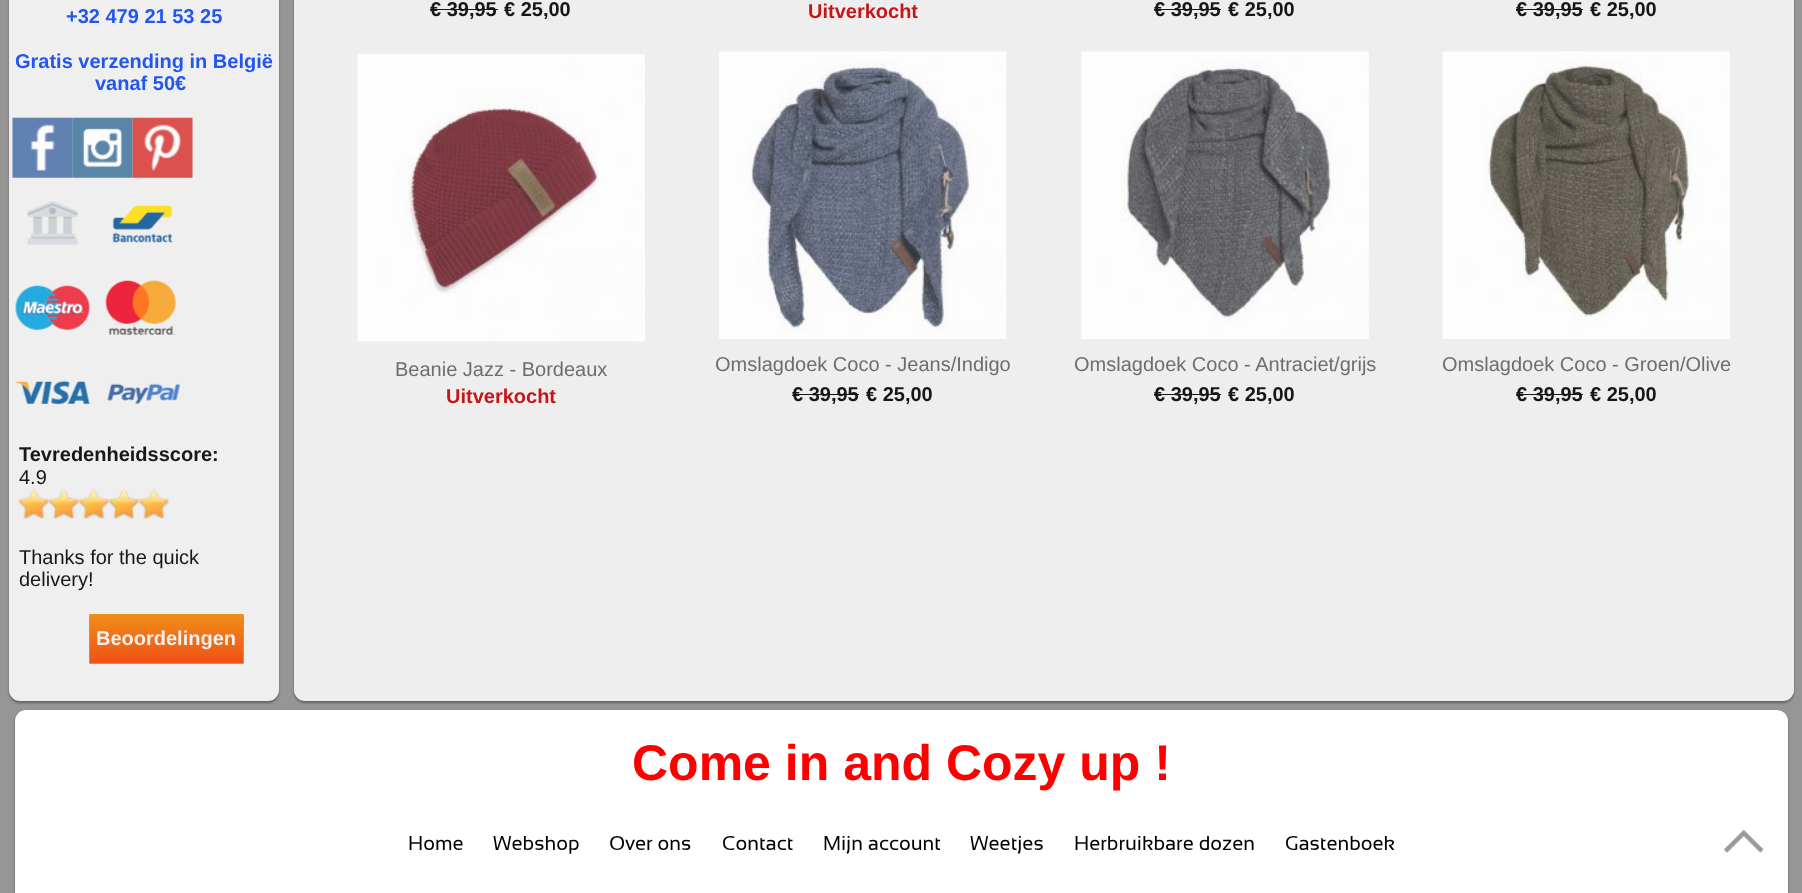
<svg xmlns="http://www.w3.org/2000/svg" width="1802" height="893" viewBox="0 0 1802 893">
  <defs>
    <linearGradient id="g1" gradientUnits="userSpaceOnUse" x1="90" y1="615" x2="90" y2="663"><stop offset="0" stop-color="#ef8e17"/><stop offset="1" stop-color="#ef5117"/></linearGradient>
  </defs>
  <rect width="100%" height="100%" fill="#969696"/>
  <rect x="9" y="-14" width="270" height="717" rx="11" fill="#17171766" filter="blur(1px)"/>
  <rect x="9" y="-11" width="270" height="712" rx="11" fill="#efefef"/>
  <image x="12" y="117" width="61" height="61" href="img/1.png"/>
  <image x="72" y="117" width="61" height="61" href="img/2.png"/>
  <image x="132" y="117" width="61" height="61" href="img/3.png"/>
  <image x="27" y="201" width="51" height="44" href="img/4.png"/>
  <image x="112" y="205" width="61" height="38" href="img/5.png"/>
  <image x="15" y="285" width="75" height="45" href="img/6.png"/>
  <image x="105" y="280" width="71" height="55" href="img/7.png"/>
  <image x="15" y="380" width="75" height="25" href="img/8.png"/>
  <image x="107" y="383" width="73" height="21" href="img/9.png"/>
  <image x="18" y="488" width="32" height="31" href="img/10.png"/>
  <image x="48" y="489" width="31" height="30" href="img/11.png"/>
  <image x="78" y="488" width="32" height="31" href="img/12.png"/>
  <image x="108" y="489" width="31" height="30" href="img/13.png"/>
  <image x="138" y="488" width="32" height="31" href="img/12.png"/>
  <path d="M90 615h153v48H90z" fill="url(#g1)"/>
  <rect x="89.5" y="614.5" width="154" height="49" rx="0.5" fill="none" stroke="#ef8e17"/>
  <rect x="294" y="-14" width="1500" height="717" rx="11" fill="#17171766" filter="blur(1px)"/>
  <rect x="294" y="-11" width="1500" height="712" rx="11" fill="#eee"/>
  <path d="M430 9h68v1H430z" fill="#171717"/>
  <path d="M1154 9h67v1H1154z" fill="#171717"/>
  <path d="M1516 9h67v1H1516z" fill="#171717"/>
  <image x="357" y="54" width="288" height="288" href="img/14.png"/>
  <image x="719" y="51" width="288" height="288" href="img/15.png"/>
  <path d="M793 394h66v1H793z" fill="#171717"/>
  <image x="1081" y="51" width="288" height="288" href="img/16.png"/>
  <path d="M1154 394h67v1H1154z" fill="#171717"/>
  <image x="1442" y="51" width="288" height="288" href="img/17.png"/>
  <path d="M1516 394h67v1H1516z" fill="#171717"/>
  <rect x="15" y="711" width="1773" height="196" rx="11" fill="#00000066" filter="blur(1px)"/>
  <rect x="15" y="710" width="1773" height="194" rx="11" fill="#fff"/>
  <image x="1724" y="829" width="40" height="24" href="img/18.png"/>
  <g font-family="Liberation Sans" font-size="20" font-weight="bold" fill="#2356ef">
    <text x="66" y="23">+32 479 21 53 25</text>
    <text x="15" y="68">Gratis verzending in België</text>
    <text x="95" y="90">vanaf 50€</text>
  </g>
  <text x="19" y="461" font-family="Liberation Sans" font-size="20" font-weight="bold" fill="#171717">Tevredenheidsscore:</text>
  <g font-family="Liberation Sans" font-size="20" fill="#171717">
    <text x="19" y="484">4.9</text>
    <text x="19" y="564">Thanks for the quick</text>
    <text x="19" y="586">delivery!</text>
  </g>
  <text x="96" y="645" font-family="Liberation Sans" font-size="20" font-weight="bold" fill="#efefef">Beoordelingen</text>
  <g font-family="Liberation Sans" font-size="20" font-weight="bold" fill="#171717">
    <text x="430" y="16">€ 39,95</text>
    <text x="504" y="16">€ 25,00</text>
  </g>
  <text x="808" y="18" font-family="Liberation Sans" font-size="20" font-weight="bold" fill="#c41717">Uitverkocht</text>
  <g font-family="Liberation Sans" font-size="20" font-weight="bold" fill="#171717">
    <text x="1154" y="16">€ 39,95</text>
    <text x="1228" y="16">€ 25,00</text>
    <text x="1516" y="16">€ 39,95</text>
    <text x="1590" y="16">€ 25,00</text>
  </g>
  <text x="395" y="376" font-family="Liberation Sans" font-size="20" fill="#6d6d6d">Beanie Jazz - Bordeaux</text>
  <text x="446" y="403" font-family="Liberation Sans" font-size="20" font-weight="bold" fill="#c41717">Uitverkocht</text>
  <text x="715" y="371" font-family="Liberation Sans" font-size="20" fill="#6d6d6d">Omslagdoek Coco - Jeans/Indigo</text>
  <g font-family="Liberation Sans" font-size="20" font-weight="bold" fill="#171717">
    <text x="792" y="401">€ 39,95</text>
    <text x="866" y="401">€ 25,00</text>
  </g>
  <text x="1074" y="371" font-family="Liberation Sans" font-size="20" fill="#6d6d6d">Omslagdoek Coco - Antraciet/grijs</text>
  <g font-family="Liberation Sans" font-size="20" font-weight="bold" fill="#171717">
    <text x="1154" y="401">€ 39,95</text>
    <text x="1228" y="401">€ 25,00</text>
  </g>
  <text x="1442" y="371" font-family="Liberation Sans" font-size="20" fill="#6d6d6d">Omslagdoek Coco - Groen/Olive</text>
  <g font-family="Liberation Sans" font-size="20" font-weight="bold" fill="#171717">
    <text x="1516" y="401">€ 39,95</text>
    <text x="1590" y="401">€ 25,00</text>
  </g>
  <text x="632" y="780" font-family="Liberation Sans" font-size="50" font-weight="bold" fill="#f00">Come in and Cozy up !</text>
  <g font-family="Sansation" font-size="20" fill="#000">
    <text x="408" y="850">Home</text>
    <text x="493" y="850">Webshop</text>
    <text x="609" y="850">Over ons</text>
    <text x="722" y="850">Contact</text>
    <text x="823" y="850">Mijn account</text>
    <text x="970" y="850">Weetjes</text>
    <text x="1074" y="850">Herbruikbare dozen</text>
    <text x="1285" y="850">Gastenboek</text>
  </g>
</svg>
